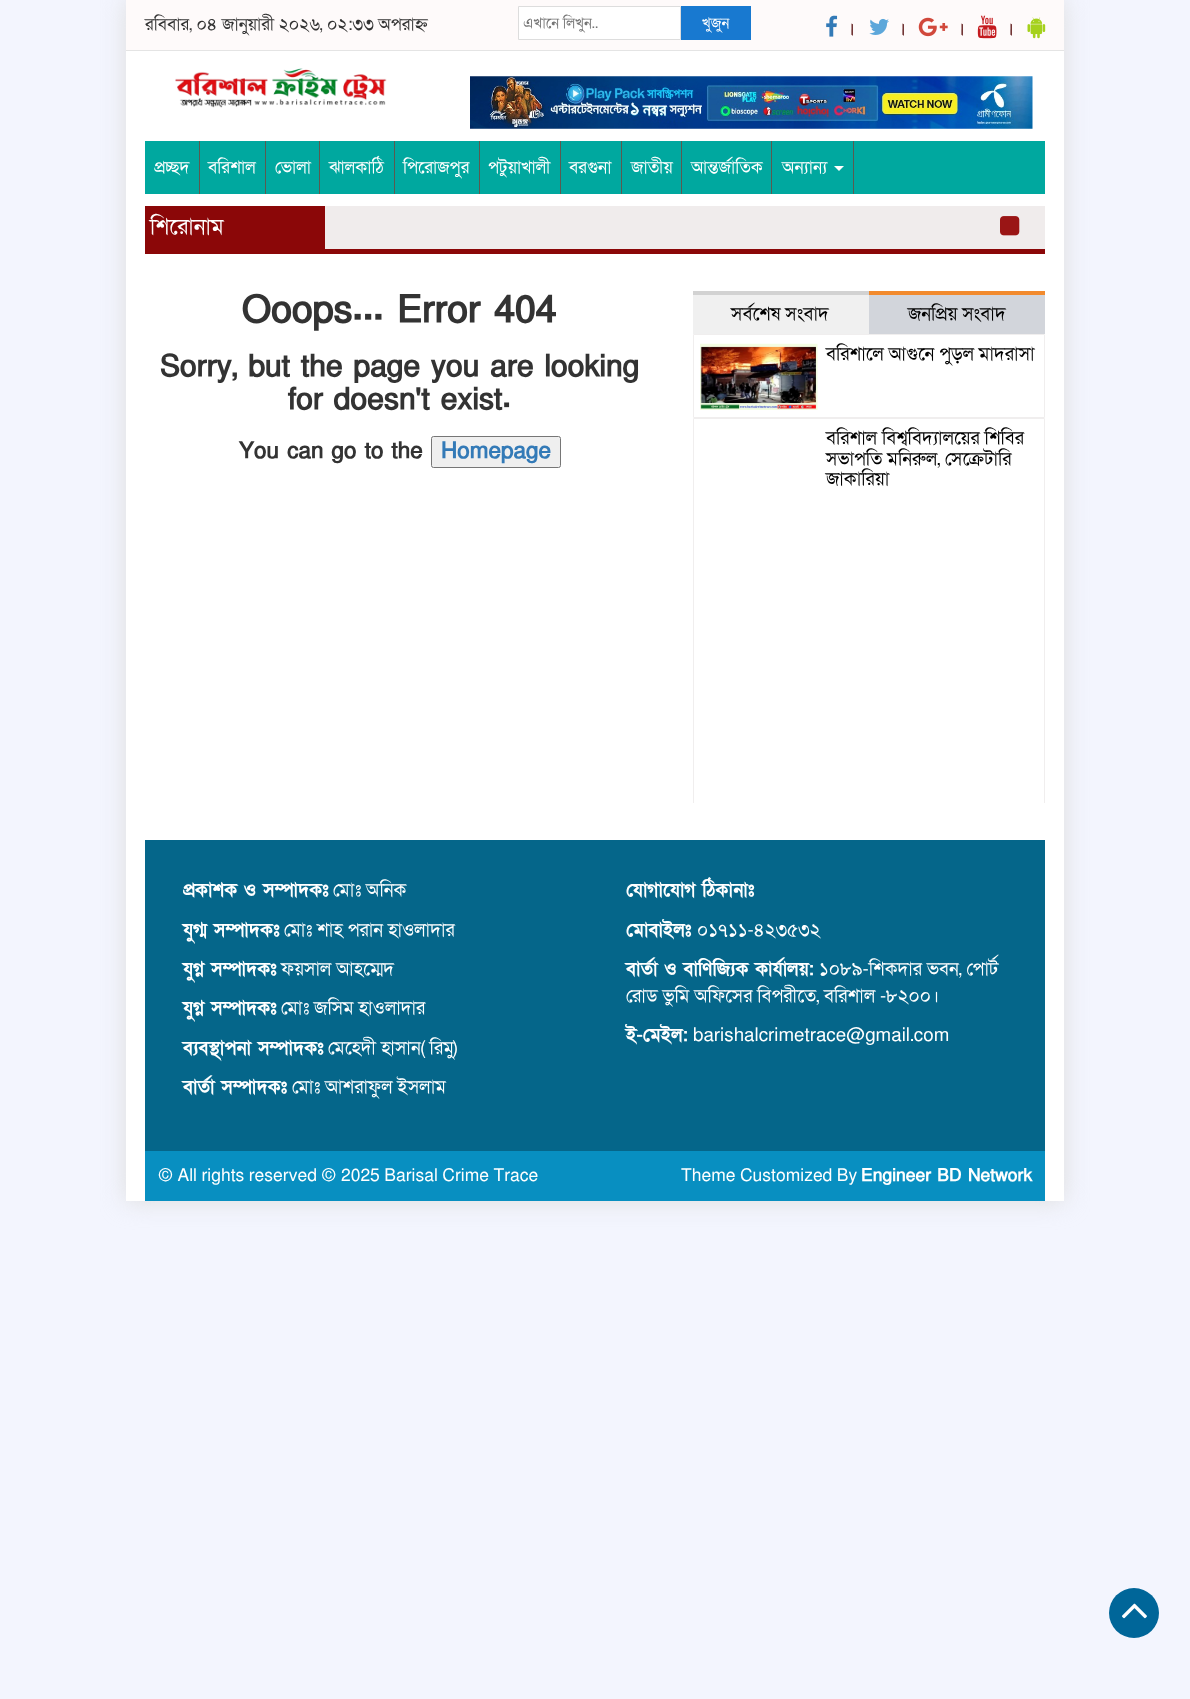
<svg xmlns="http://www.w3.org/2000/svg" width="1190" height="1699" viewBox="0 0 1190 1699">
  <defs>
    <clipPath id="clip1"><path d="M693 334h352v469H693z"/></clipPath>
  </defs>
  <rect width="100%" height="100%" fill="#f3f5fe"/>
  <path d="M126 0h938v1201H126z" fill="#ddd" filter="blur(12.5px)"/>
  <path d="M126 51h938v1150H126z" fill="#fff"/>
  <path d="M126 0h938v50H126z" fill="#fefafa"/>
  <path d="M126 50h938v1H126z" fill="#e4e4e4"/>
  <path d="M518.5 6.5h162v33H518.5z" fill="#fff" stroke="#ddd"/>
  <path d="M681 6h70v34H681z" fill="#1879d0"/>
  <image x="826" y="15" width="12" height="22" href="img/1.png"/>
  <image x="869" y="18" width="20" height="17" href="img/2.png"/>
  <image x="918" y="17" width="30" height="20" href="img/3.png"/>
  <image x="977" y="15" width="20" height="24" href="img/4.png"/>
  <image x="1027" y="17" width="19" height="22" href="img/5.png"/>
  <image x="175" y="68" width="212" height="40" href="img/6.png"/>
  <image x="470" y="76" width="563" height="53" href="img/7.png"/>
  <path d="M145 141h900v53H145z" fill="#00a89f"/>
  <path d="M199 141h1v53H199z" fill="#5b5a50"/>
  <path d="M265 141h1v53H265z" fill="#5b5a50"/>
  <path d="M319 141h1v53H319z" fill="#5b5a50"/>
  <path d="M394 141h1v53H394z" fill="#5b5a50"/>
  <path d="M479 141h1v53H479z" fill="#5b5a50"/>
  <path d="M560 141h1v53H560z" fill="#5b5a50"/>
  <path d="M621 141h1v53H621z" fill="#5b5a50"/>
  <path d="M681 141h1v53H681z" fill="#5b5a50"/>
  <path d="M771 141h1v53H771z" fill="#5b5a50"/>
  <path d="M853 141h1v53H853z" fill="#5b5a50"/>
  <path d="M834 166H844L839 171Z" fill="#fff"/>
  <path d="M145 206h180v48H145z" fill="#8b0708"/>
  <path d="M325 206h720v43H325z" fill="#f0ecec"/>
  <path d="M325 249h720v5H325z" fill="#8b0708"/>
  <image x="1000" y="216" width="20" height="20" href="img/8.png"/>
  <rect x="431.5" y="436.5" width="129" height="31" rx="2" fill="#efefef" stroke="#767676"/>
  <path d="M869 295h176v39H869z" fill="#d2d5db"/>
  <path d="M693 295h176v39H693z" fill="#f0f0f0"/>
  <path d="M693 291h176v4H693z" fill="#d2d2d2"/>
  <path d="M869 291h176v4H869z" fill="#f28a2d"/>
  <path d="M693.5 334.5h351v83H693.5z" fill="none" stroke="#f0eeee"/>
  <image x="700" y="343" width="118" height="67" href="img/9.png"/>
  <path d="M145 840h900v311H145z" fill="#05668a"/>
  <g clip-path="url(#clip1)">
    <path d="M693.5 418.5h351v605H693.5z" fill="none" stroke="#f0eeee"/>
  </g>
  <path d="M145 1151h900v50H145z" fill="#088fc1"/>
  <circle cx="1134" cy="1613" r="25" fill="#069"/>
  <image x="1122" y="1603" width="25" height="16" href="img/10.png"/>
  <text x="145" y="30" font-family="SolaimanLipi" font-size="17.5" fill="#333">রবিবার, ০৪ জানুয়ারী ২০২৬, ০২:৩৩ অপরাহ্ন</text>
  <text x="523" y="28" font-family="SolaimanLipi" font-size="15" fill="#757575">এখানে লিখুন..</text>
  <text x="702" y="28" font-family="SolaimanLipi" font-size="15" fill="#fff">খুজুন</text>
  <g font-family="SolaimanLipi" font-size="21" fill="#4d0202">
    <text x="846" y="35">।</text>
    <text x="897" y="35">।</text>
    <text x="956" y="35">।</text>
    <text x="1005" y="35">।</text>
  </g>
  <g font-family="SolaimanLipi" font-size="17.5" fill="#fff">
    <text x="154" y="173">প্রচ্ছদ</text>
    <text x="208" y="173">বরিশাল</text>
    <text x="275" y="173">ভোলা</text>
    <text x="329" y="173">ঝালকাঠি</text>
    <text x="403" y="173">পিরোজপুর</text>
    <text x="488" y="173">পটুয়াখালী</text>
    <text x="569" y="173">বরগুনা</text>
    <text x="631" y="173">জাতীয়</text>
    <text x="691" y="173">আন্তর্জাতিক</text>
    <text x="782" y="173">অন্যান্য</text>
  </g>
  <text x="150" y="234" font-family="SolaimanLipi" font-size="22.5" fill="#fff">শিরোনাম</text>
  <text x="242" y="322" font-family="SolaimanLipi" font-size="37.5" font-weight="bold" fill="#333">Ooops... Error 404</text>
  <g font-family="SolaimanLipi" font-size="30" font-weight="bold" fill="#333">
    <text x="160" y="376">Sorry, but the page you are looking</text>
    <text x="288" y="409">for doesn't exist.</text>
  </g>
  <text x="239" y="458" font-family="SolaimanLipi" font-size="22.5" font-weight="bold" fill="#333">You can go to the</text>
  <text x="441" y="458" font-family="SolaimanLipi" font-size="22.5" font-weight="bold" fill="#337ab7">Homepage</text>
  <g font-family="SolaimanLipi" font-size="18.75" fill="#000">
    <text x="731" y="320">সর্বশেষ সংবাদ</text>
    <text x="908" y="320">জনপ্রিয় সংবাদ</text>
    <text x="826" y="360">বরিশালে আগুনে পুড়ল মাদরাসা</text>
    <text x="826" y="444">বরিশাল বিশ্ববিদ্যালয়ের শিবির</text>
    <text x="826" y="465">সভাপতি মনিরুল, সেক্রেটারি</text>
    <text x="826" y="485">জাকারিয়া</text>
  </g>
  <text x="183" y="896" font-family="SolaimanLipi" font-size="18.75" font-weight="bold" fill="#fff">প্রকাশক ও সম্পাদকঃ</text>
  <text x="333" y="896" font-family="SolaimanLipi" font-size="18.75" fill="#fff">মোঃ অনিক</text>
  <text x="183" y="936" font-family="SolaimanLipi" font-size="18.75" font-weight="bold" fill="#fff">যুগ্ম সম্পাদকঃ</text>
  <text x="284" y="936" font-family="SolaimanLipi" font-size="18.75" fill="#fff">মোঃ শাহ পরান হাওলাদার</text>
  <text x="183" y="975" font-family="SolaimanLipi" font-size="18.75" font-weight="bold" fill="#fff">যুগ্ন সম্পাদকঃ</text>
  <text x="281" y="975" font-family="SolaimanLipi" font-size="18.75" fill="#fff">ফয়সাল আহম্মেদ</text>
  <text x="183" y="1014" font-family="SolaimanLipi" font-size="18.75" font-weight="bold" fill="#fff">যুগ্ন সম্পাদকঃ</text>
  <text x="281" y="1014" font-family="SolaimanLipi" font-size="18.75" fill="#fff">মোঃ জসিম হাওলাদার</text>
  <text x="183" y="1054" font-family="SolaimanLipi" font-size="18.75" font-weight="bold" fill="#fff">ব্যবস্থাপনা সম্পাদকঃ</text>
  <text x="328" y="1054" font-family="SolaimanLipi" font-size="18.75" fill="#fff">মেহেদী হাসান( রিমু)</text>
  <text x="183" y="1093" font-family="SolaimanLipi" font-size="18.75" font-weight="bold" fill="#fff">বার্তা সম্পাদকঃ</text>
  <text x="292" y="1093" font-family="SolaimanLipi" font-size="18.75" fill="#fff">মোঃ আশরাফুল ইসলাম</text>
  <g font-family="SolaimanLipi" font-size="18.75" font-weight="bold" fill="#fff">
    <text x="626" y="896">যোগাযোগ ঠিকানাঃ</text>
    <text x="626" y="936">মোবাইলঃ</text>
  </g>
  <text x="697" y="936" font-family="SolaimanLipi" font-size="18.75" fill="#fff">০১৭১১-৪২৩৫৩২</text>
  <text x="626" y="975" font-family="SolaimanLipi" font-size="18.75" font-weight="bold" fill="#fff">বার্তা ও বাণিজ্যিক কার্যালয়:</text>
  <g font-family="SolaimanLipi" font-size="18.75" fill="#fff">
    <text x="819" y="975">১০৮৯-শিকদার ভবন, পোর্ট</text>
    <text x="626" y="1002">রোড ভুমি অফিসের বিপরীতে, বরিশাল -৮২০০।</text>
  </g>
  <text x="626" y="1041" font-family="SolaimanLipi" font-size="18.75" font-weight="bold" fill="#fff">ই-মেইল:</text>
  <text x="693" y="1041" font-family="SolaimanLipi" font-size="18.75" fill="#fff">barishalcrimetrace@gmail.com</text>
  <g font-family="SolaimanLipi" font-size="17.5" fill="#fff">
    <text x="158" y="1181">© All rights reserved © 2025 Barisal Crime Trace</text>
    <text x="681" y="1181">Theme Customized By</text>
  </g>
  <text x="861" y="1181" font-family="SolaimanLipi" font-size="17.5" font-weight="bold" fill="#fff">Engineer BD Network</text>
</svg>
